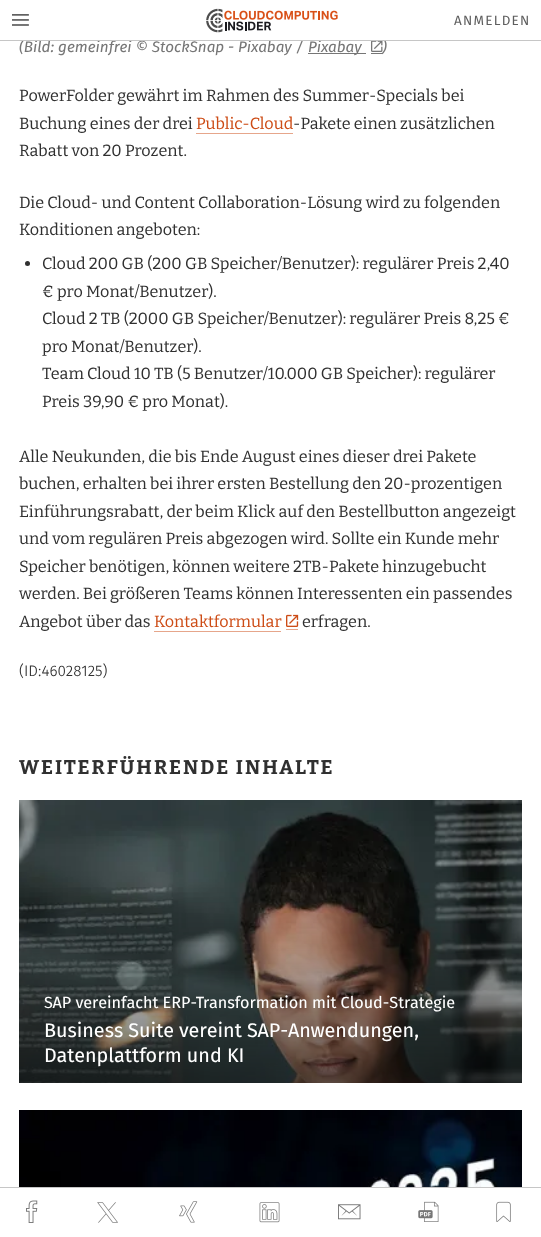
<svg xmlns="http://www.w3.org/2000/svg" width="541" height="1237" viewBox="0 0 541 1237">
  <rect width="100%" height="100%" fill="#fff"/>
  <image x="12" y="14" width="17" height="12" href="img/1.png"/>
  <image x="206" y="8" width="132" height="25" href="img/2.png"/>
  <path d="M308 53h58v1H308z" fill="#767676"/>
  <path d="M371 53h11v1H371z" fill="#767676"/>
  <path d="M196 133h97v1H196z" fill="#e6a68b"/>
  <circle cx="27.5" cy="263.5" r="2.5" fill="#303030"/>
  <path d="M154 631h127v1H154z" fill="#e6a68b"/>
  <path d="M286 629h12v1H286z" fill="#e6a68b"/>
  <image x="286" y="614" width="13" height="13" href="img/4.png"/>
  <image x="19" y="800" width="503" height="283" href="img/5.png"/>
  <image x="19" y="1110" width="503" height="77" href="img/6.png"/>
  <path d="M0 1187h541v1H0z" fill="#c6c6c6"/>
  <image x="26" y="1200" width="12" height="23" href="img/7.png"/>
  <image x="97" y="1202" width="21" height="21" href="img/8.png"/>
  <image x="179" y="1201" width="19" height="22" href="img/9.png"/>
  <image x="259" y="1202" width="21" height="21" href="img/10.png"/>
  <image x="338" y="1204" width="23" height="16" href="img/11.png"/>
  <image x="418" y="1201" width="21" height="21" href="img/12.png"/>
  <image x="496" y="1201" width="15" height="21" href="img/13.png"/>
  <text x="454" y="25" font-family="'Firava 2'" font-size="13.5" letter-spacing="1.25" fill="#5e5e5e">ANMELDEN</text>
  <g font-family="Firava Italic" font-size="15.25" font-style="italic" fill="#767676">
    <text x="19" y="52">(Bild: gemeinfrei © StockSnap - Pixabay /</text>
    <text x="308" y="52">Pixabay</text>
    <text x="382" y="52">)</text>
  </g>
  <path d="M0 40h541v1H0z" fill="#c6c6c6"/>
  <path d="M22 39h364v1H22z" fill="#fff"/>
  <image x="371" y="41" width="12" height="11" href="img/3.png"/>
  <g font-family="Bitter" font-size="16.2" fill="#303030">
    <text x="19" y="101">PowerFolder gewährt im Rahmen des Summer-Specials bei</text>
    <text x="19" y="129">Buchung eines der drei</text>
  </g>
  <text x="196" y="129" font-family="Bitter" font-size="16.2" fill="#cd4c16">Public-Cloud</text>
  <g font-family="Bitter" font-size="16.2" fill="#303030">
    <text x="293" y="129">-Pakete einen zusätzlichen</text>
    <text x="19" y="156">Rabatt von 20 Prozent.</text>
    <text x="19" y="208">Die Cloud- und Content Collaboration-Lösung wird zu folgenden</text>
    <text x="19" y="235">Konditionen angeboten:</text>
    <text x="42" y="269">Cloud 200 GB (200 GB Speicher/Benutzer): regulärer Preis 2,40</text>
    <text x="42" y="297">€ pro Monat/Benutzer).</text>
    <text x="42" y="324">Cloud 2 TB (2000 GB Speicher/Benutzer): regulärer Preis 8,25 €</text>
    <text x="42" y="352">pro Monat/Benutzer).</text>
    <text x="42" y="379">Team Cloud 10 TB (5 Benutzer/10.000 GB Speicher): regulärer</text>
    <text x="42" y="407">Preis 39,90 € pro Monat).</text>
    <text x="19" y="462">Alle Neukunden, die bis Ende August eines dieser drei Pakete</text>
    <text x="19" y="489">buchen, erhalten bei ihrer ersten Bestellung den 20-prozentigen</text>
    <text x="19" y="517">Einführungsrabatt, der beim Klick auf den Bestellbutton angezeigt</text>
    <text x="19" y="544">und vom regulären Preis abgezogen wird. Sollte ein Kunde mehr</text>
    <text x="19" y="572">Speicher benötigen, können weitere 2TB-Pakete hinzugebucht</text>
    <text x="19" y="599">werden. Bei größeren Teams können Interessenten ein passendes</text>
    <text x="19" y="627">Angebot über das</text>
  </g>
  <text x="154" y="627" font-family="Bitter" font-size="16.2" fill="#cd4c16">Kontaktformular</text>
  <text x="302" y="627" font-family="Bitter" font-size="16.2" fill="#303030">erfragen.</text>
  <text x="19" y="676" font-family="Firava" font-size="15.25" font-weight="300" fill="#303030">(ID:46028125)</text>
  <text x="19" y="774" font-family="Bitter" font-size="19.75" font-weight="bold" letter-spacing="2" fill="#303030">WEITERFÜHRENDE INHALTE</text>
  <text x="44" y="1008" font-family="Firava" font-size="16.2" fill="#fff">SAP vereinfacht ERP-Transformation mit Cloud-Strategie</text>
  <g font-family="Firava" font-size="19.75" fill="#fff">
    <text x="44" y="1037">Business Suite vereint SAP-Anwendungen,</text>
    <text x="44" y="1062">Datenplattform und KI</text>
  </g>
</svg>
